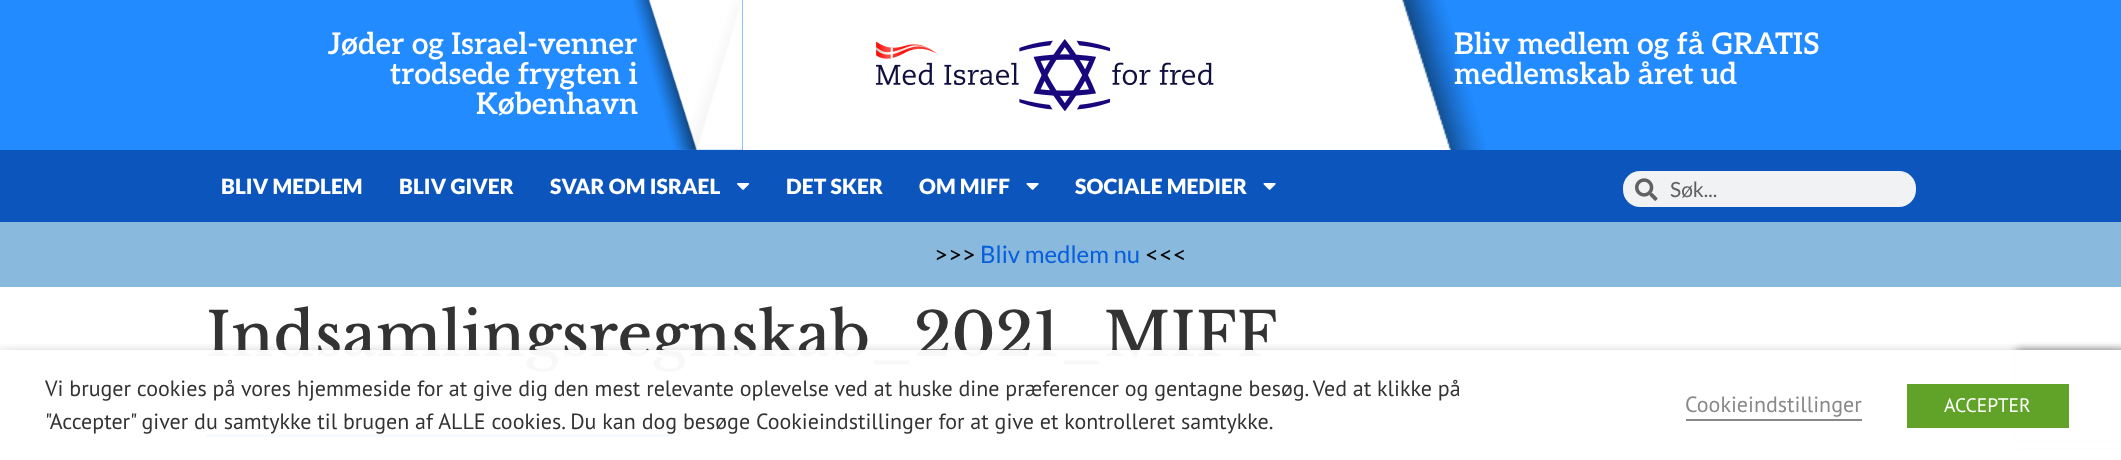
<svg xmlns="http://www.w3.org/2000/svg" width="2121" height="460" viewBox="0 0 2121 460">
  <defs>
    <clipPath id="clip1"><path d="M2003 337H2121V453H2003ZM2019 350H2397C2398.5 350 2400 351.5 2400 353V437C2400 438.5 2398.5 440 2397 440H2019C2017.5 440 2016 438.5 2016 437V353C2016 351.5 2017.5 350 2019 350Z" clip-rule="evenodd"/></clipPath>
    <clipPath id="clip2"><path d="M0 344h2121v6H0z"/></clipPath>
  </defs>
  <rect width="100%" height="100%" fill="#fff"/>
  <path d="M0 0h2121v150H0z" fill="#228bff"/>
  <image x="633" y="0" width="110" height="150" href="img/1.png"/>
  <path d="M743 0h636v150H743z" fill="#fff"/>
  <image x="876" y="39" width="338" height="72" href="img/2.png"/>
  <image x="1379" y="0" width="106" height="150" href="img/3.png"/>
  <path d="M0 150h2121v72H0z" fill="#0b55bc"/>
  <image x="737" y="183" width="13" height="7" href="img/4.png"/>
  <image x="1026" y="183" width="13" height="7" href="img/5.png"/>
  <image x="1263" y="183" width="13" height="7" href="img/5.png"/>
  <rect x="1623" y="171" width="293" height="36" rx="17" fill="#f1f2f3"/>
  <image x="1635" y="178" width="23" height="23" href="img/6.png"/>
  <path d="M0 222h2121v65H0z" fill="#89b9dc"/>
  <path d="M206 434h466v3H206z" fill="#075edd"/>
  <g clip-path="url(#clip1)">
    <rect x="2016" y="350" width="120" height="90" rx="3" fill="#808080" filter="blur(4px)"/>
  </g>
  <g clip-path="url(#clip2)">
    <path d="M0 357h2121v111H0z" fill="#00000080" filter="blur(7.5px)"/>
  </g>
  <g font-family="Aleo" font-size="30" font-weight="600" fill="#fff">
    <text x="328" y="54">Jøder og Israel-venner</text>
    <text x="390" y="84">trodsede frygten i</text>
    <text x="476" y="114">København</text>
    <text x="1454" y="54">Bliv medlem og få GRATIS</text>
    <text x="1454" y="84">medlemskab året ud</text>
  </g>
  <g font-family="Lato" font-size="21" font-weight="900" letter-spacing="0.1" fill="#fff">
    <text x="221" y="194">BLIV MEDLEM</text>
    <text x="399" y="194">BLIV GIVER</text>
    <text x="550" y="194">SVAR OM ISRAEL</text>
    <text x="786" y="194">DET SKER</text>
    <text x="919" y="194">OM MIFF</text>
    <text x="1075" y="194">SOCIALE MEDIER</text>
  </g>
  <text x="1670" y="197" font-family="Lato" font-size="21" fill="#606161">Søk...</text>
  <text x="934" y="263" font-family="Lato" font-size="24" fill="#000">&gt;&gt;&gt;</text>
  <text x="980" y="263" font-family="Lato" font-size="24" fill="#075edd">Bliv medlem nu</text>
  <text x="1145" y="263" font-family="Lato" font-size="24" fill="#000">&lt;&lt;&lt;</text>
  <text x="206" y="356" font-family="Libre Baskerville" font-size="60" font-weight="500" fill="#333">Indsamlingsregnskab_2021_MIFF</text>
  <path d="M206 350h1915v98H206z" fill="#fffffff7"/>
  <g font-family="PT Sans" font-size="22" fill="#333">
    <text x="45" y="396">Vi bruger cookies på vores hjemmeside for at give dig den mest relevante oplevelse ved at huske dine præferencer og gentagne besøg. Ved at klikke på</text>
    <text x="45" y="429">"Accepter" giver du samtykke til brugen af ALLE cookies. Du kan dog besøge Cookieindstillinger for at give et kontrolleret samtykke.</text>
  </g>
  <text x="1685" y="412" font-family="PT Sans" font-size="22" fill="#898888">Cookieindstillinger</text>
  <path d="M1686 419h176v2H1686z" fill="#898888"/>
  <path d="M1907 384h162v44H1907z" fill="#61a229"/>
  <text x="1944" y="412" font-family="PT Sans" font-size="19.5" fill="#fff">ACCEPTER</text>
</svg>
